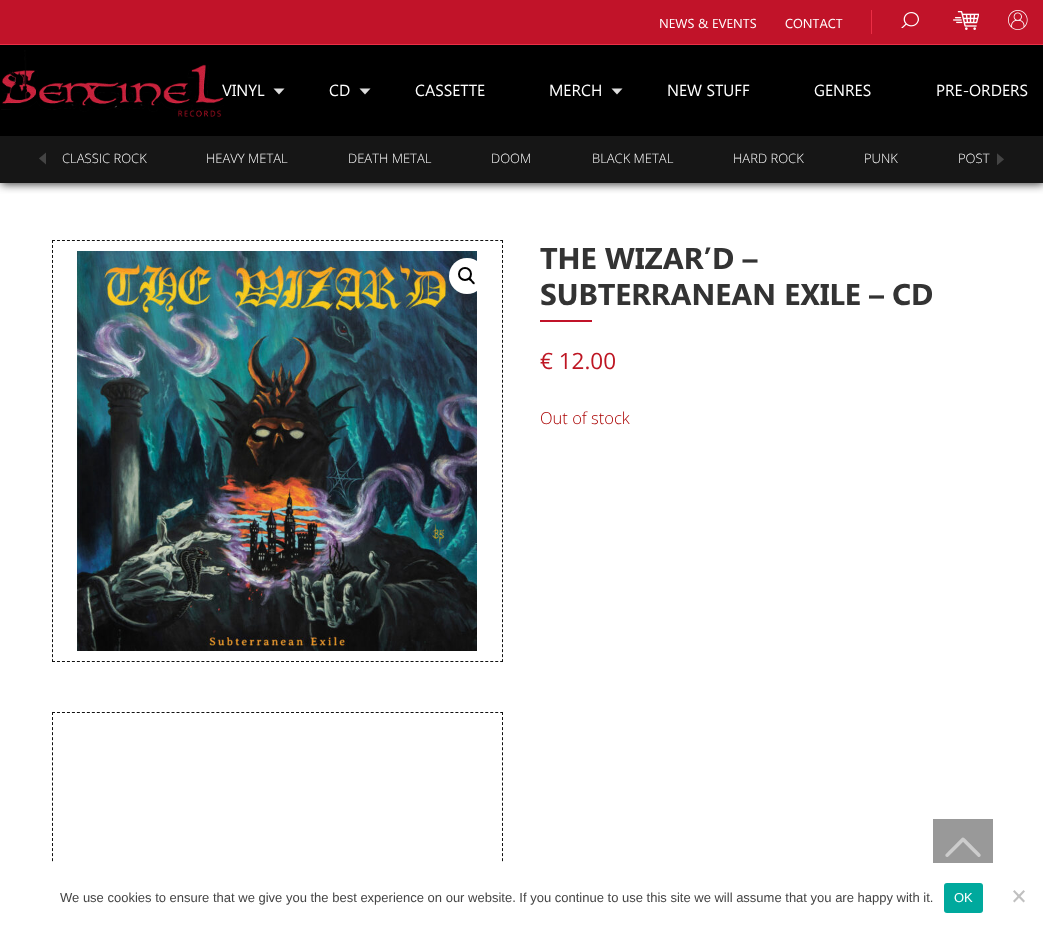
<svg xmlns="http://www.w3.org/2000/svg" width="1043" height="929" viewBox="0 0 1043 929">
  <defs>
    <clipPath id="clip1"><path d="M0 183h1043v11H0z"/></clipPath>
  </defs>
  <rect width="100%" height="100%" fill="#000"/>
  <path d="M0 183h1043v680H0z" fill="#fff"/>
  <g clip-path="url(#clip1)">
    <path d="M1 1h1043v183H1z" fill="#333" filter="blur(5px)"/>
  </g>
  <path d="M0 0h1043v44H0z" fill="#c11329"/>
  <path d="M0 44h1043v1H0z" fill="#eb3047"/>
  <path d="M871 10h1v24H871z" fill="#eb2e45"/>
  <image x="901" y="12" width="18" height="16" href="img/1.png"/>
  <image x="953" y="11" width="26" height="19" href="img/2.png"/>
  <image x="1008" y="10" width="20" height="20" href="img/3.png"/>
  <image x="1" y="50" width="223" height="67" href="img/4.png"/>
  <path d="M273.5 88.5L279 94.5L284.5 88.5Z" fill="#dedede" fill-rule="evenodd"/>
  <path d="M359.5 88.5L365 94.5L370.5 88.5Z" fill="#dedede" fill-rule="evenodd"/>
  <path d="M611.5 88.5L617 94.5L622.5 88.5Z" fill="#dedede" fill-rule="evenodd"/>
  <path d="M0 136h1043v47H0z" fill="#161616"/>
  <image x="39" y="152" width="7" height="13" href="img/5.png"/>
  <image x="997" y="153" width="7" height="12" href="img/6.png"/>
  <path d="M52 240.5H503" fill="none" stroke="#111" stroke-dasharray="3 1.98"/>
  <path d="M502.5 240V662" fill="none" stroke="#111" stroke-dasharray="3 1.99"/>
  <path d="M52 661.5H503" fill="none" stroke="#111" stroke-dasharray="3 1.98"/>
  <path d="M52.5 240V662" fill="none" stroke="#111" stroke-dasharray="3 1.99"/>
  <image x="77" y="251" width="400" height="400" href="img/7.png"/>
  <path d="M52 712.5H503" fill="none" stroke="#111" stroke-dasharray="3 1.98"/>
  <path d="M52.5 712V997" fill="none" stroke="#111" stroke-dasharray="3 2.04"/>
  <path d="M502.5 712V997" fill="none" stroke="#111" stroke-dasharray="3 2.04"/>
  <circle cx="467" cy="276" r="18" fill="#fff"/>
  <circle cx="465" cy="274" r="6" fill="none" stroke="#000" stroke-width="2"/>
  <path d="M469 278C470 277 472 279.5 472.5 280.5C473 281 475.5 282.5 474.5 284C473.5 285 471.5 282.5 471 281.5C470.5 281 467.5 279.5 469 278Z" fill="#000"/>
  <path d="M540 320h52v2H540z" fill="#c11329"/>
  <path d="M933 819h60v44H933z" fill="#999"/>
  <image x="945" y="837" width="36" height="20" href="img/8.png"/>
  <path d="M0 863h1043v66H0z" fill="#fff"/>
  <rect x="944" y="883" width="39" height="30" rx="3" fill="#00a99d"/>
  <path d="M1023.5 890L1025 891.5L1014.5 902.5L1013 901Z" fill="#c0c0c0"/>
  <path d="M1013 891.5L1014.5 890L1025 901L1023.5 902.5Z" fill="#c0c0c0"/>
  <g font-family="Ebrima" font-size="13" fill="#fff">
    <text x="659" y="28">NEWS &amp; EVENTS</text>
    <text x="785" y="28">CONTACT</text>
  </g>
  <g font-family="Ebrima" font-size="16" fill="#fff">
    <text x="222" y="96">VINYL</text>
    <text x="329" y="96">CD</text>
    <text x="415" y="96">CASSETTE</text>
    <text x="549" y="96">MERCH</text>
    <text x="667" y="96">NEW STUFF</text>
    <text x="814" y="96">GENRES</text>
    <text x="936" y="96">PRE-ORDERS</text>
  </g>
  <g font-family="Open Sans" font-size="13" font-weight="300" fill="#fff">
    <text x="62" y="163">CLASSIC ROCK</text>
    <text x="206" y="163">HEAVY METAL</text>
    <text x="348" y="163">DEATH METAL</text>
    <text x="491" y="163">DOOM</text>
    <text x="592" y="163">BLACK METAL</text>
    <text x="733" y="163">HARD ROCK</text>
    <text x="864" y="163">PUNK</text>
    <text x="958" y="163">POST</text>
  </g>
  <g font-family="Ebrima" font-size="30" font-weight="bold" fill="#333">
    <text x="540" y="269">THE WIZAR’D –</text>
    <text x="540" y="305">SUBTERRANEAN EXILE – CD</text>
  </g>
  <text x="540" y="369" font-family="Open Sans" font-size="22.5" fill="#be1623">€ 12.00</text>
  <text x="540" y="424" font-family="Open Sans" font-size="16.5" font-weight="300" fill="#a00">Out of stock</text>
  <text x="60" y="902" font-family="Liberation Sans" font-size="13" fill="#444">We use cookies to ensure that we give you the best experience on our website. If you continue to use this site we will assume that you are happy with it.</text>
  <text x="954" y="902" font-family="Liberation Sans" font-size="13" fill="#fff">OK</text>
</svg>
